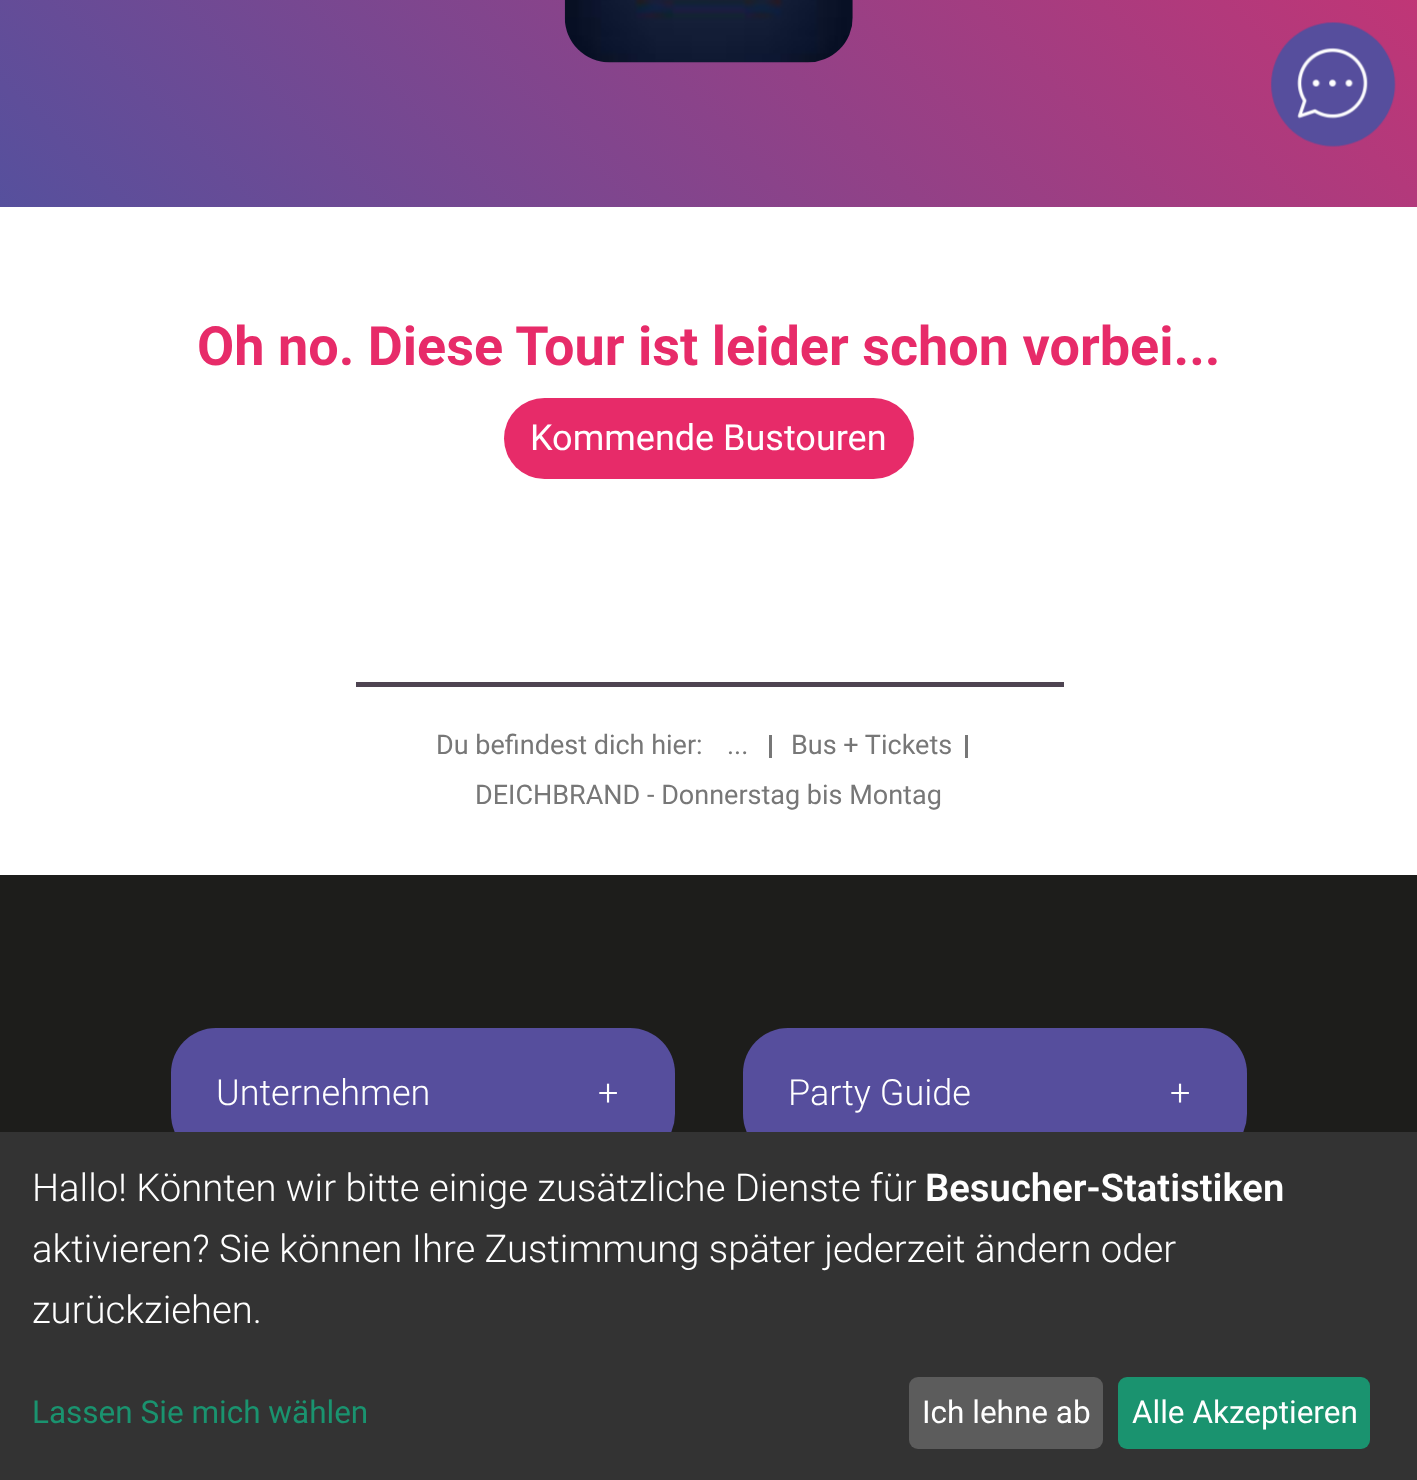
<svg xmlns="http://www.w3.org/2000/svg" width="1417" height="1480" viewBox="0 0 1417 1480">
  <defs>
    <linearGradient id="g1" gradientUnits="userSpaceOnUse" x1="153" y1="360" x2="1265" y2="-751"><stop offset="0" stop-color="#56509d"/><stop offset="1" stop-color="#e72c68"/></linearGradient>
  </defs>
  <rect width="100%" height="100%" fill="#fff"/>
  <path d="M0 0h1417v207H0z" fill="url(#g1)"/>
  <image x="1271" y="22" width="125" height="125" href="img/1.png"/>
  <image x="564" y="0" width="289" height="63" href="img/2.png"/>
  <rect x="504" y="398" width="410" height="81" rx="40.5" fill="#e72b69"/>
  <path d="M356 682h708v5H356z" fill="#4e4451"/>
  <path d="M769 735h3v23H769z" fill="#777"/>
  <path d="M965 735h3v23H965z" fill="#777"/>
  <path d="M0 875h1417v257H0z" fill="#1d1d1b"/>
  <rect x="171" y="1028" width="504" height="131" rx="45" fill="#564e9d"/>
  <rect x="743" y="1028" width="504" height="131" rx="45" fill="#564e9d"/>
  <path d="M0 1132h1417v348H0z" fill="#333"/>
  <rect x="909" y="1377" width="194" height="72" rx="9" fill="#5c5c5c"/>
  <rect x="1118" y="1377" width="252" height="72" rx="9" fill="#1a936f"/>
  <text x="197" y="365" font-family="Roboto" font-size="54" font-weight="bold" fill="#e72b69">Oh no. Diese Tour ist leider schon vorbei...</text>
  <text x="530" y="450" font-family="Roboto" font-size="36" fill="#fff">Kommende Bustouren</text>
  <g font-family="Roboto" font-size="27" fill="#777">
    <text x="436" y="754">Du befindest dich hier:</text>
    <text x="727" y="754">...</text>
    <text x="791" y="754">Bus + Tickets</text>
    <text x="475" y="804">DEICHBRAND - Donnerstag bis Montag</text>
  </g>
  <g font-family="Roboto" font-size="36" font-weight="300" fill="#fff">
    <text x="216" y="1105">Unternehmen</text>
    <text x="598" y="1105">+</text>
    <text x="788" y="1105">Party Guide</text>
    <text x="1170" y="1105">+</text>
  </g>
  <text x="32" y="1201" font-family="Roboto" font-size="38.25" font-weight="300" fill="#fff">Hallo! Könnten wir bitte einige zusätzliche Dienste für</text>
  <text x="925" y="1201" font-family="Roboto" font-size="38.25" font-weight="600" fill="#fff">Besucher-Statistiken</text>
  <g font-family="Roboto" font-size="38.25" font-weight="300" fill="#fff">
    <text x="32" y="1262">aktivieren? Sie können Ihre Zustimmung später jederzeit ändern oder</text>
    <text x="32" y="1323">zurückziehen.</text>
  </g>
  <text x="32" y="1423" font-family="Roboto" font-size="31.5" fill="#1a936f">Lassen Sie mich wählen</text>
  <g font-family="Roboto" font-size="31.5" fill="#fff">
    <text x="922" y="1423">Ich lehne ab</text>
    <text x="1132" y="1423">Alle Akzeptieren</text>
  </g>
</svg>
